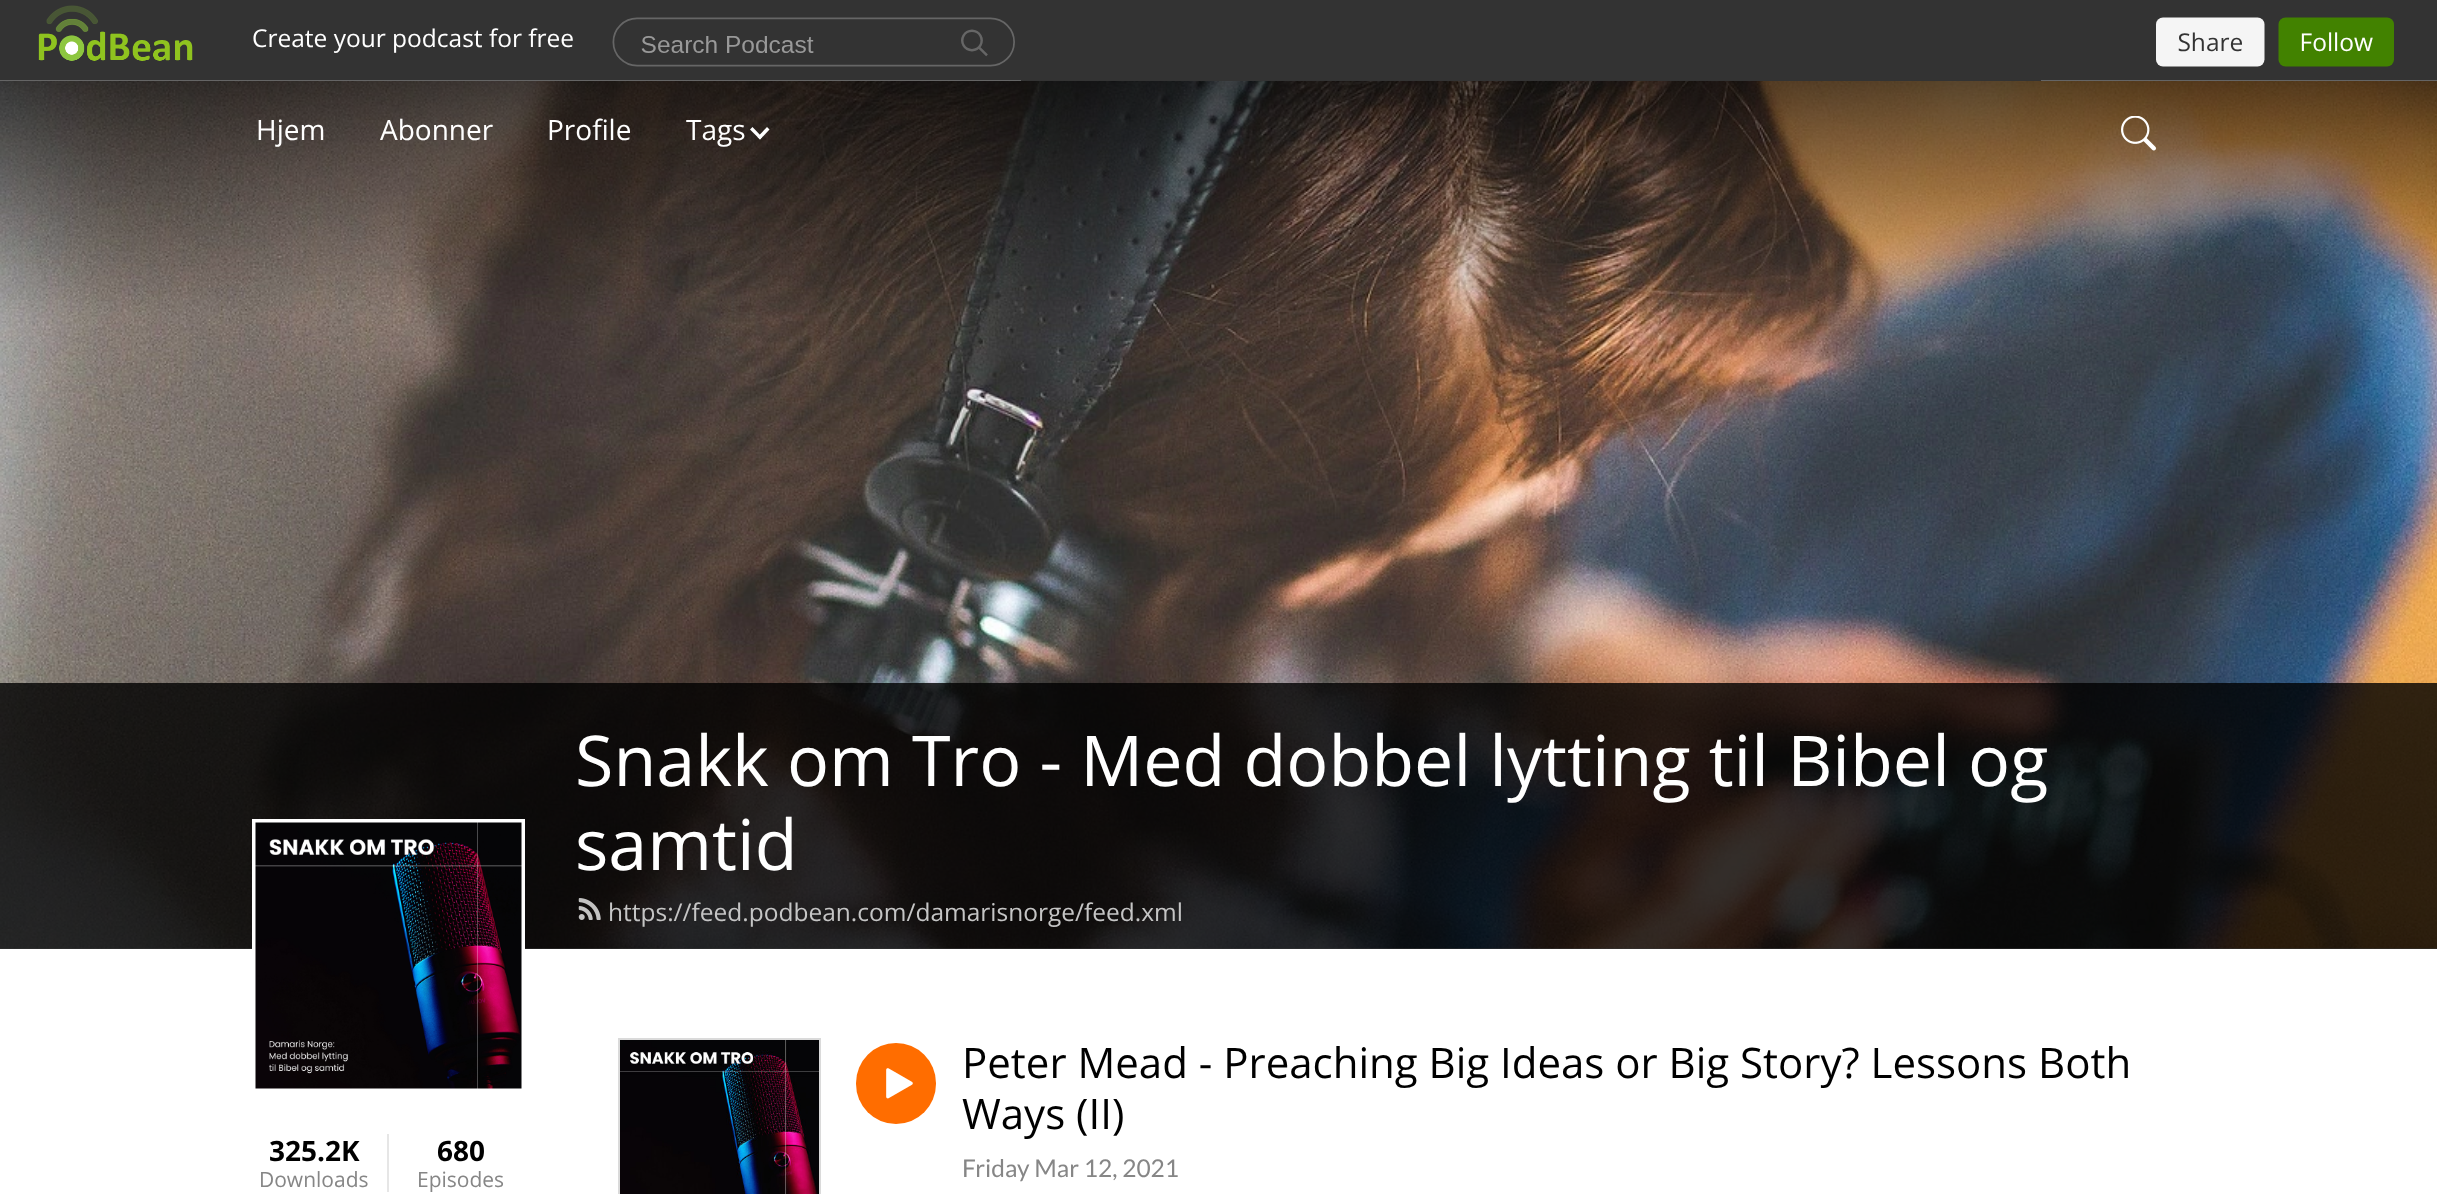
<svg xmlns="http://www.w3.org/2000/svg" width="2437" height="1194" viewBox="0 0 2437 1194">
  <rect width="100%" height="100%" fill="#fff"/>
  <path d="M0 0h2437v5H0z" fill="#333"/>
  <image x="0" y="5" width="2437" height="76" href="img/1.png"/>
  <image x="0" y="81" width="2437" height="868" href="img/3.png"/>
  <path d="M767 127L769.5 129.5L760 139.5L757.5 137Z" fill="#fff"/>
  <path d="M752.5 127L762 137L760 139.5L750 129.5Z" fill="#fff"/>
  <image x="2121" y="116" width="35" height="35" href="img/2.png"/>
  <path d="M0 683h2437v266H0z" fill="#000000cc"/>
  <image x="578" y="898" width="23" height="22" href="img/4.png"/>
  <path d="M254 821h269v269H254z" fill="none" stroke="#fff" stroke-width="4"/>
  <image x="255" y="822" width="267" height="267" href="img/5.png"/>
  <path d="M387 1134h2v58H387z" fill="#e6e6e6"/>
  <path d="M619 1039h201v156H619z" fill="none" stroke="#dadada" stroke-width="2"/>
  <image x="620" y="1040" width="199" height="154" href="img/6.png"/>
  <rect x="856" y="1043" width="80" height="81" rx="40" fill="#ff6d00"/>
  <image x="886" y="1068" width="27" height="31" href="img/7.png"/>
  <g font-family="Open Sans" font-size="28" fill="#fff">
    <text x="256" y="140">Hjem</text>
    <text x="380" y="140">Abonner</text>
    <text x="547" y="140">Profile</text>
    <text x="686" y="140">Tags</text>
  </g>
  <g font-family="Open Sans" font-size="70" fill="#fff">
    <text x="575" y="786">Snakk om Tro - Med dobbel lytting til Bibel og</text>
    <text x="575" y="870">samtid</text>
  </g>
  <text x="608" y="921" font-family="Open Sans" font-size="24.5" fill="#c5c5c5">https://feed.podbean.com/damarisnorge/feed.xml</text>
  <text x="269" y="1161" font-family="Open Sans" font-size="28" font-weight="bold" fill="#000">325.2K</text>
  <text x="259" y="1187" font-family="Open Sans" font-size="21" fill="#868686">Downloads</text>
  <text x="437" y="1161" font-family="Open Sans" font-size="28" font-weight="bold" fill="#000">680</text>
  <text x="417" y="1187" font-family="Open Sans" font-size="21" fill="#868686">Episodes</text>
  <g font-family="Open Sans" font-size="42" fill="#000">
    <text x="962" y="1078">Peter Mead - Preaching Big Ideas or Big Story? Lessons Both</text>
    <text x="962" y="1129">Ways (II)</text>
  </g>
  <text x="962" y="1177" font-family="Lato" font-size="24.5" fill="#868686">Friday Mar 12, 2021</text>
</svg>
